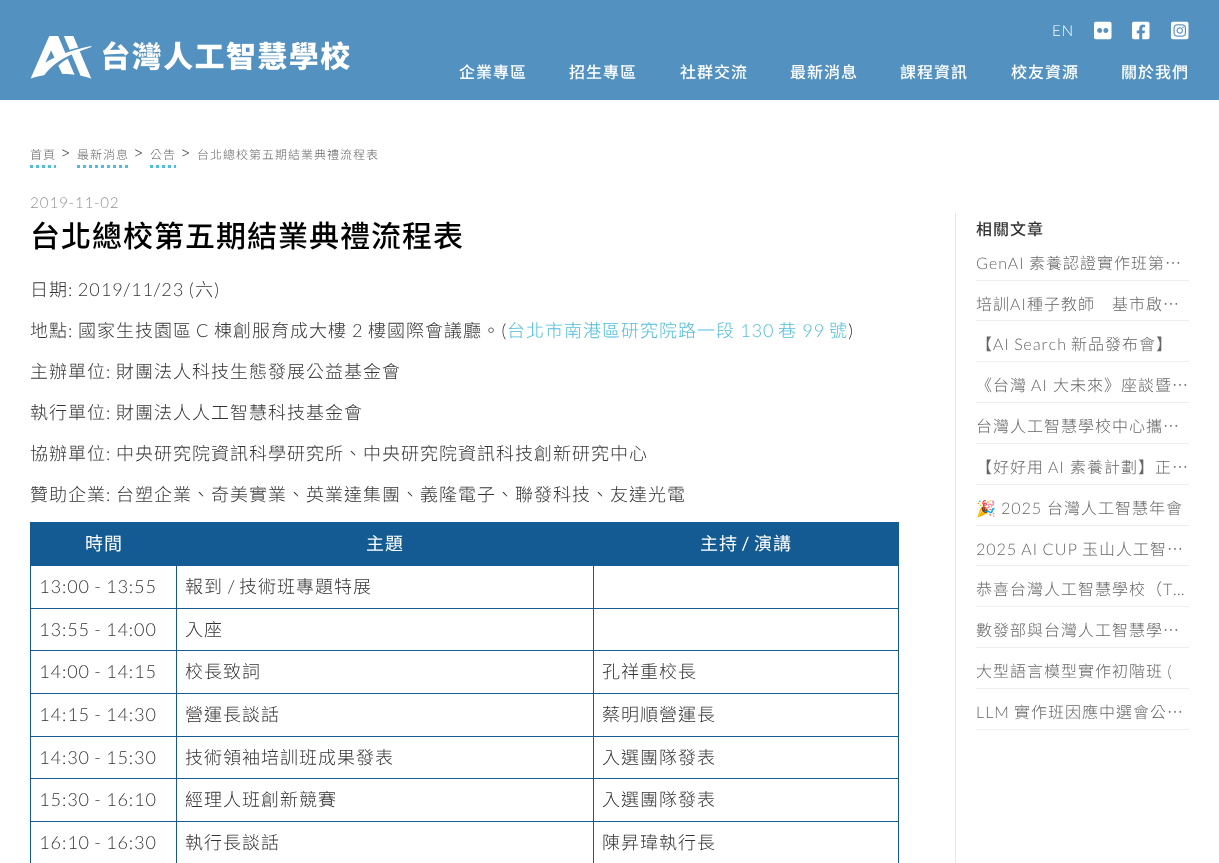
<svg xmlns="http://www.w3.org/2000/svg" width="1219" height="863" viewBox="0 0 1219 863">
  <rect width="100%" height="100%" fill="#fff"/>
  <path d="M0 0h1219v100H0z" fill="#5391c0"/>
  <image x="1094" y="21" width="18" height="19" href="img/1.png"/>
  <image x="1132" y="21" width="18" height="19" href="img/2.png"/>
  <image x="1171" y="21" width="18" height="19" href="img/3.png"/>
  <image x="30" y="36" width="320" height="43" href="img/4.png"/>
  <path d="M30 166.5H56" fill="none" stroke="#50bddb" stroke-width="3" stroke-dasharray="3 3"/>
  <path d="M77 166.5H129" fill="none" stroke="#50bddb" stroke-width="3" stroke-dasharray="3 3"/>
  <path d="M150 166.5H176" fill="none" stroke="#50bddb" stroke-width="3" stroke-dasharray="3 3"/>
  <path d="M31 523h868v42H31z" fill="#135b92"/>
  <path d="M30 522h869v1H30z" fill="#135b92"/>
  <path d="M593 565h306v1H593z" fill="#135b92"/>
  <path d="M593 608h306v1H593z" fill="#135b92"/>
  <path d="M593 650h306v1H593z" fill="#135b92"/>
  <path d="M593 693h306v1H593z" fill="#135b92"/>
  <path d="M593 736h306v1H593z" fill="#135b92"/>
  <path d="M593 778h306v1H593z" fill="#135b92"/>
  <path d="M593 821h306v1H593z" fill="#135b92"/>
  <path d="M593 821h1v42H593z" fill="#135b92"/>
  <path d="M176 821h418v1H176z" fill="#135b92"/>
  <path d="M593 778h1v44H593z" fill="#135b92"/>
  <path d="M176 778h418v1H176z" fill="#135b92"/>
  <path d="M593 736h1v43H593z" fill="#135b92"/>
  <path d="M176 736h418v1H176z" fill="#135b92"/>
  <path d="M593 693h1v44H593z" fill="#135b92"/>
  <path d="M176 693h418v1H176z" fill="#135b92"/>
  <path d="M593 650h1v44H593z" fill="#135b92"/>
  <path d="M176 650h418v1H176z" fill="#135b92"/>
  <path d="M593 608h1v43H593z" fill="#135b92"/>
  <path d="M176 608h418v1H176z" fill="#135b92"/>
  <path d="M593 565h1v44H593z" fill="#135b92"/>
  <path d="M176 565h418v1H176z" fill="#135b92"/>
  <path d="M176 821h1v42H176z" fill="#135b92"/>
  <path d="M30 821h147v1H30z" fill="#135b92"/>
  <path d="M176 778h1v44H176z" fill="#135b92"/>
  <path d="M30 778h147v1H30z" fill="#135b92"/>
  <path d="M176 736h1v43H176z" fill="#135b92"/>
  <path d="M30 736h147v1H30z" fill="#135b92"/>
  <path d="M176 693h1v44H176z" fill="#135b92"/>
  <path d="M30 693h147v1H30z" fill="#135b92"/>
  <path d="M176 650h1v44H176z" fill="#135b92"/>
  <path d="M30 650h147v1H30z" fill="#135b92"/>
  <path d="M176 608h1v43H176z" fill="#135b92"/>
  <path d="M30 608h147v1H30z" fill="#135b92"/>
  <path d="M176 565h1v44H176z" fill="#135b92"/>
  <path d="M30 565h147v1H30z" fill="#135b92"/>
  <path d="M30 821h1v42H30z" fill="#135b92"/>
  <path d="M30 778h1v44H30z" fill="#135b92"/>
  <path d="M30 736h1v43H30z" fill="#135b92"/>
  <path d="M30 693h1v44H30z" fill="#135b92"/>
  <path d="M30 650h1v44H30z" fill="#135b92"/>
  <path d="M30 608h1v43H30z" fill="#135b92"/>
  <path d="M30 565h1v44H30z" fill="#135b92"/>
  <path d="M30 522h1v44H30z" fill="#135b92"/>
  <path d="M898 821h1v42H898z" fill="#135b92"/>
  <path d="M898 778h1v44H898z" fill="#135b92"/>
  <path d="M898 736h1v43H898z" fill="#135b92"/>
  <path d="M898 693h1v44H898z" fill="#135b92"/>
  <path d="M898 650h1v44H898z" fill="#135b92"/>
  <path d="M898 608h1v43H898z" fill="#135b92"/>
  <path d="M898 565h1v44H898z" fill="#135b92"/>
  <path d="M955 213h1v650H955z" fill="#e6e6e6"/>
  <path d="M976 280h213v1H976z" fill="#eee"/>
  <path d="M976 320h213v1H976z" fill="#eee"/>
  <path d="M976 361h213v1H976z" fill="#eee"/>
  <path d="M976 402h213v1H976z" fill="#eee"/>
  <path d="M976 443h213v1H976z" fill="#eee"/>
  <path d="M976 484h213v1H976z" fill="#eee"/>
  <path d="M976 525h213v1H976z" fill="#eee"/>
  <path d="M976 565h213v1H976z" fill="#eee"/>
  <path d="M976 606h213v1H976z" fill="#eee"/>
  <path d="M976 647h213v1H976z" fill="#eee"/>
  <path d="M976 688h213v1H976z" fill="#eee"/>
  <path d="M976 729h213v1H976z" fill="#eee"/>
  <text x="1052" y="36" font-family="Lato" font-size="15" font-weight="300" letter-spacing="1" fill="#fff">EN</text>
  <g font-family="Noto Sans TC" font-size="16" font-weight="500" letter-spacing="1" fill="#fff">
    <text x="459" y="78">企業專區</text>
    <text x="569" y="78">招生專區</text>
    <text x="680" y="78">社群交流</text>
    <text x="790" y="78">最新消息</text>
    <text x="900" y="78">課程資訊</text>
    <text x="1011" y="78">校友資源</text>
    <text x="1121" y="78">關於我們</text>
  </g>
  <text x="30" y="159" font-family="Noto Sans TC" font-size="12" font-weight="300" letter-spacing="1" fill="#666">首頁</text>
  <text x="60" y="159" font-family="Lato" font-size="18" font-weight="300" letter-spacing="1" fill="#343434">&gt;</text>
  <text x="77" y="159" font-family="Noto Sans TC" font-size="12" font-weight="300" letter-spacing="1" fill="#666">最新消息</text>
  <text x="133" y="159" font-family="Lato" font-size="18" font-weight="300" letter-spacing="1" fill="#343434">&gt;</text>
  <text x="150" y="159" font-family="Noto Sans TC" font-size="12" font-weight="300" letter-spacing="1" fill="#666">公告</text>
  <text x="180" y="159" font-family="Lato" font-size="18" font-weight="300" letter-spacing="1" fill="#343434">&gt;</text>
  <text x="197" y="159" font-family="Noto Sans TC" font-size="12" font-weight="300" letter-spacing="1" fill="#666">台北總校第五期結業典禮流程表</text>
  <text x="30" y="208" font-family="Lato" font-size="15" font-weight="300" letter-spacing="1" fill="#919191">2019-11-02</text>
  <text x="30" y="247" font-family="Noto Sans TC" font-size="30" font-weight="500" letter-spacing="1" fill="#000">台北總校第五期結業典禮流程表</text>
  <text x="30" y="296" font-family="Noto Sans TC" font-size="18" font-weight="300" letter-spacing="1" fill="#343434">日期</text>
  <text x="68" y="296" font-family="Lato" font-size="18" font-weight="300" letter-spacing="1" fill="#343434">: 2019/11/23 (</text>
  <text x="195" y="296" font-family="Noto Sans TC" font-size="18" font-weight="300" letter-spacing="1" fill="#343434">六</text>
  <text x="214" y="296" font-family="Lato" font-size="18" font-weight="300" letter-spacing="1" fill="#343434">)</text>
  <text x="30" y="337" font-family="Noto Sans TC" font-size="18" font-weight="300" letter-spacing="1" fill="#343434">地點</text>
  <text x="68" y="337" font-family="Lato" font-size="18" font-weight="300" letter-spacing="1" fill="#343434">:</text>
  <text x="78" y="337" font-family="Noto Sans TC" font-size="18" font-weight="300" letter-spacing="1" fill="#343434">國家生技園區</text>
  <text x="196" y="337" font-family="Lato" font-size="18" font-weight="300" letter-spacing="1" fill="#343434">C</text>
  <text x="214" y="337" font-family="Noto Sans TC" font-size="18" font-weight="300" letter-spacing="1" fill="#343434">棟創服育成大樓</text>
  <text x="352" y="337" font-family="Lato" font-size="18" font-weight="300" letter-spacing="1" fill="#343434">2</text>
  <text x="368" y="337" font-family="Noto Sans TC" font-size="18" font-weight="300" letter-spacing="1" fill="#343434">樓國際會議廳。</text>
  <text x="501" y="337" font-family="Lato" font-size="18" font-weight="300" letter-spacing="1" fill="#343434">(</text>
  <text x="507" y="337" font-family="Noto Sans TC" font-size="18" font-weight="300" letter-spacing="1" fill="#50bddb">台北市南港區研究院路一段</text>
  <text x="740" y="337" font-family="Lato" font-size="18" font-weight="300" letter-spacing="1" fill="#50bddb">130</text>
  <text x="778" y="337" font-family="Noto Sans TC" font-size="18" font-weight="300" letter-spacing="1" fill="#50bddb">巷</text>
  <text x="802" y="337" font-family="Lato" font-size="18" font-weight="300" letter-spacing="1" fill="#50bddb">99</text>
  <text x="829" y="337" font-family="Noto Sans TC" font-size="18" font-weight="300" letter-spacing="1" fill="#50bddb">號</text>
  <text x="848" y="337" font-family="Lato" font-size="18" font-weight="300" letter-spacing="1" fill="#343434">)</text>
  <text x="30" y="378" font-family="Noto Sans TC" font-size="18" font-weight="300" letter-spacing="1" fill="#343434">主辦單位</text>
  <text x="106" y="378" font-family="Lato" font-size="18" font-weight="300" letter-spacing="1" fill="#343434">:</text>
  <g font-family="Noto Sans TC" font-size="18" font-weight="300" letter-spacing="1" fill="#343434">
    <text x="116" y="378">財團法人科技生態發展公益基金會</text>
    <text x="30" y="419">執行單位</text>
  </g>
  <text x="106" y="419" font-family="Lato" font-size="18" font-weight="300" letter-spacing="1" fill="#343434">:</text>
  <g font-family="Noto Sans TC" font-size="18" font-weight="300" letter-spacing="1" fill="#343434">
    <text x="116" y="419">財團法人人工智慧科技基金會</text>
    <text x="30" y="460">協辦單位</text>
  </g>
  <text x="106" y="460" font-family="Lato" font-size="18" font-weight="300" letter-spacing="1" fill="#343434">:</text>
  <g font-family="Noto Sans TC" font-size="18" font-weight="300" letter-spacing="1" fill="#343434">
    <text x="116" y="460">中央研究院資訊科學研究所、中央研究院資訊科技創新研究中心</text>
    <text x="30" y="501">贊助企業</text>
  </g>
  <text x="106" y="501" font-family="Lato" font-size="18" font-weight="300" letter-spacing="1" fill="#343434">:</text>
  <text x="116" y="501" font-family="Noto Sans TC" font-size="18" font-weight="300" letter-spacing="1" fill="#343434">台塑企業、奇美實業、英業達集團、義隆電子、聯發科技、友達光電</text>
  <g font-family="Noto Sans TC" font-size="18" letter-spacing="1" fill="#fff">
    <text x="85" y="550">時間</text>
    <text x="366" y="550">主題</text>
    <text x="700" y="550">主持</text>
  </g>
  <text x="742" y="550" font-family="Lato" font-size="18" letter-spacing="1" fill="#fff">/</text>
  <text x="754" y="550" font-family="Noto Sans TC" font-size="18" letter-spacing="1" fill="#fff">演講</text>
  <text x="39" y="593" font-family="Lato" font-size="18" font-weight="300" letter-spacing="1" fill="#343434">13:00 - 13:55</text>
  <text x="185" y="593" font-family="Noto Sans TC" font-size="18" font-weight="300" letter-spacing="1" fill="#343434">報到</text>
  <text x="228" y="593" font-family="Lato" font-size="18" font-weight="300" letter-spacing="1" fill="#343434">/</text>
  <text x="239" y="593" font-family="Noto Sans TC" font-size="18" font-weight="300" letter-spacing="1" fill="#343434">技術班專題特展</text>
  <text x="39" y="636" font-family="Lato" font-size="18" font-weight="300" letter-spacing="1" fill="#343434">13:55 - 14:00</text>
  <text x="185" y="636" font-family="Noto Sans TC" font-size="18" font-weight="300" letter-spacing="1" fill="#343434">入座</text>
  <text x="39" y="678" font-family="Lato" font-size="18" font-weight="300" letter-spacing="1" fill="#343434">14:00 - 14:15</text>
  <g font-family="Noto Sans TC" font-size="18" font-weight="300" letter-spacing="1" fill="#343434">
    <text x="185" y="678">校長致詞</text>
    <text x="602" y="678">孔祥重校長</text>
  </g>
  <text x="39" y="721" font-family="Lato" font-size="18" font-weight="300" letter-spacing="1" fill="#343434">14:15 - 14:30</text>
  <g font-family="Noto Sans TC" font-size="18" font-weight="300" letter-spacing="1" fill="#343434">
    <text x="185" y="721">營運長談話</text>
    <text x="602" y="721">蔡明順營運長</text>
  </g>
  <text x="39" y="764" font-family="Lato" font-size="18" font-weight="300" letter-spacing="1" fill="#343434">14:30 - 15:30</text>
  <g font-family="Noto Sans TC" font-size="18" font-weight="300" letter-spacing="1" fill="#343434">
    <text x="185" y="764">技術領袖培訓班成果發表</text>
    <text x="602" y="764">入選團隊發表</text>
  </g>
  <text x="39" y="806" font-family="Lato" font-size="18" font-weight="300" letter-spacing="1" fill="#343434">15:30 - 16:10</text>
  <g font-family="Noto Sans TC" font-size="18" font-weight="300" letter-spacing="1" fill="#343434">
    <text x="185" y="806">經理人班創新競賽</text>
    <text x="602" y="806">入選團隊發表</text>
  </g>
  <text x="39" y="849" font-family="Lato" font-size="18" font-weight="300" letter-spacing="1" fill="#343434">16:10 - 16:30</text>
  <g font-family="Noto Sans TC" font-size="18" font-weight="300" letter-spacing="1" fill="#343434">
    <text x="185" y="849">執行長談話</text>
    <text x="602" y="849">陳昇瑋執行長</text>
  </g>
  <text x="976" y="235" font-family="Noto Sans TC" font-size="16" font-weight="500" letter-spacing="1" fill="#343434">相關文章</text>
  <text x="976" y="269" font-family="Lato" font-size="16" font-weight="300" letter-spacing="1" fill="#666">GenAI</text>
  <g font-family="Noto Sans TC" font-size="16" font-weight="300" letter-spacing="1" fill="#666">
    <text x="1029" y="269">素養認證實作班第…</text>
    <text x="976" y="310">培訓</text>
  </g>
  <text x="1010" y="310" font-family="Lato" font-size="16" font-weight="300" letter-spacing="1" fill="#666">AI</text>
  <g font-family="Noto Sans TC" font-size="16" font-weight="300" letter-spacing="1" fill="#666">
    <text x="1027" y="310">種子教師　基市啟…</text>
    <text x="976" y="350">【</text>
  </g>
  <text x="993" y="350" font-family="Lato" font-size="16" font-weight="300" letter-spacing="1" fill="#666">AI Search</text>
  <g font-family="Noto Sans TC" font-size="16" font-weight="300" letter-spacing="1" fill="#666">
    <text x="1071" y="350">新品發布會】</text>
    <text x="976" y="391">《台灣</text>
  </g>
  <text x="1031" y="391" font-family="Lato" font-size="16" font-weight="300" letter-spacing="1" fill="#666">AI</text>
  <g font-family="Noto Sans TC" font-size="16" font-weight="300" letter-spacing="1" fill="#666">
    <text x="1053" y="391">大未來》座談暨…</text>
    <text x="976" y="432">台灣人工智慧學校中心攜…</text>
    <text x="976" y="473">【好好用</text>
  </g>
  <text x="1048" y="473" font-family="Lato" font-size="16" font-weight="300" letter-spacing="1" fill="#666">AI</text>
  <text x="1070" y="473" font-family="Noto Sans TC" font-size="16" font-weight="300" letter-spacing="1" fill="#666">素養計劃】正…</text>
  <text x="976" y="514" font-family="Noto Color Emoji" font-size="16" letter-spacing="1" fill="#666">🎉</text>
  <text x="1001" y="514" font-family="Lato" font-size="16" font-weight="300" letter-spacing="1" fill="#666">2025</text>
  <text x="1047" y="514" font-family="Noto Sans TC" font-size="16" font-weight="300" letter-spacing="1" fill="#666">台灣人工智慧年會</text>
  <text x="976" y="555" font-family="Lato" font-size="16" font-weight="300" letter-spacing="1" fill="#666">2025 AI CUP</text>
  <g font-family="Noto Sans TC" font-size="16" font-weight="300" letter-spacing="1" fill="#666">
    <text x="1082" y="555">玉山人工智…</text>
    <text x="976" y="595">恭喜台灣人工智慧學校（</text>
  </g>
  <text x="1163" y="595" font-family="Lato" font-size="16" font-weight="300" letter-spacing="1" fill="#666">T…</text>
  <g font-family="Noto Sans TC" font-size="16" font-weight="300" letter-spacing="1" fill="#666">
    <text x="976" y="636">數發部與台灣人工智慧學…</text>
    <text x="976" y="677">大型語言模型實作初階班</text>
  </g>
  <g font-family="Lato" font-size="16" font-weight="300" letter-spacing="1" fill="#666">
    <text x="1167" y="677">(</text>
    <text x="976" y="718">LLM</text>
  </g>
  <text x="1014" y="718" font-family="Noto Sans TC" font-size="16" font-weight="300" letter-spacing="1" fill="#666">實作班因應中選會公…</text>
</svg>
